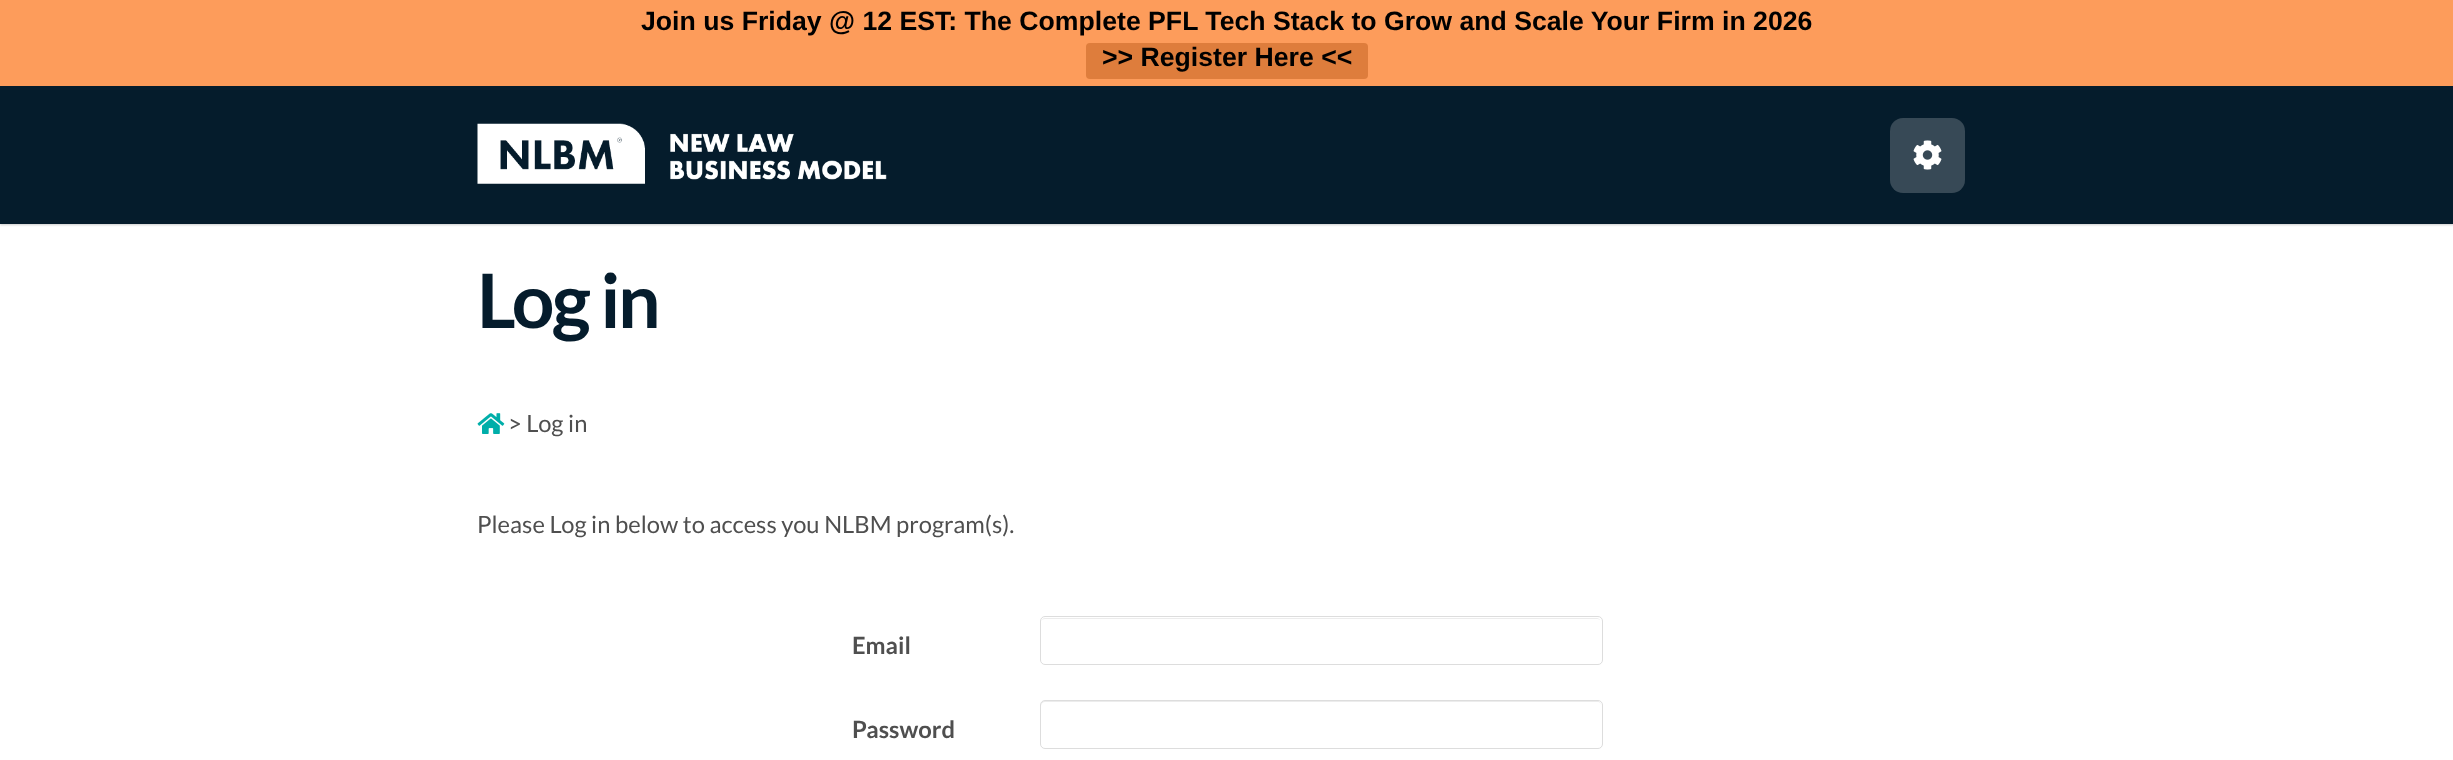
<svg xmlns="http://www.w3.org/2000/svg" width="2453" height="760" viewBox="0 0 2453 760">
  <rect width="100%" height="100%" fill="#fff"/>
  <path d="M0 88h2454v137H0z" fill="#00000033" filter="blur(1px)"/>
  <path d="M0 0h2453v86H0z" fill="#fd9c5b"/>
  <rect x="1086" y="43" width="282" height="36" rx="4" fill="#de7d3c"/>
  <path d="M0 86h2453v138H0z" fill="#051c2c"/>
  <image x="477" y="123" width="410" height="61" href="img/1.png"/>
  <rect x="1890" y="118" width="75" height="75" rx="13" fill="#374956"/>
  <image x="1913" y="140" width="29" height="30" href="img/2.png"/>
  <image x="477" y="413" width="28" height="21" href="img/3.png"/>
  <path d="M1045 619H1598L1600 620C1600 619 1598 618 1597 618H1045C1043 618 1041 620 1041 622C1041 620 1043 619 1045 619Z" fill="#ececec"/>
  <rect x="1040.5" y="616.5" width="562" height="48" rx="4.5" fill="none" stroke="#ddd"/>
  <path d="M1045 702H1598C1600 702 1601 704 1601 706C1601 703 1600 701 1597 701H1045C1042 701 1041 703 1041 706C1041 704 1043 702 1045 702Z" fill="#ececec"/>
  <rect x="1040.5" y="700.5" width="562" height="48" rx="4.5" fill="none" stroke="#ddd"/>
  <g font-family="Liberation Sans" font-size="26.65" font-weight="bold" fill="#000">
    <text x="641" y="30">Join us Friday @ 12 EST: The Complete PFL Tech Stack to Grow and Scale Your Firm in 2026</text>
    <text x="1102" y="66">&gt;&gt; Register Here &lt;&lt;</text>
  </g>
  <text x="477" y="328" font-family="Lato" font-size="75" font-weight="bold" letter-spacing="-2.5" fill="#051c2c">Log in</text>
  <g font-family="Lato" font-size="23.75" fill="#4f4f4f">
    <text x="508" y="432">&gt; Log in</text>
    <text x="477" y="533">Please Log in below to access you NLBM program(s).</text>
  </g>
  <g font-family="Lato" font-size="23.75" font-weight="bold" fill="#4f4f4f">
    <text x="852" y="654">Email</text>
    <text x="852" y="738">Password</text>
  </g>
</svg>
